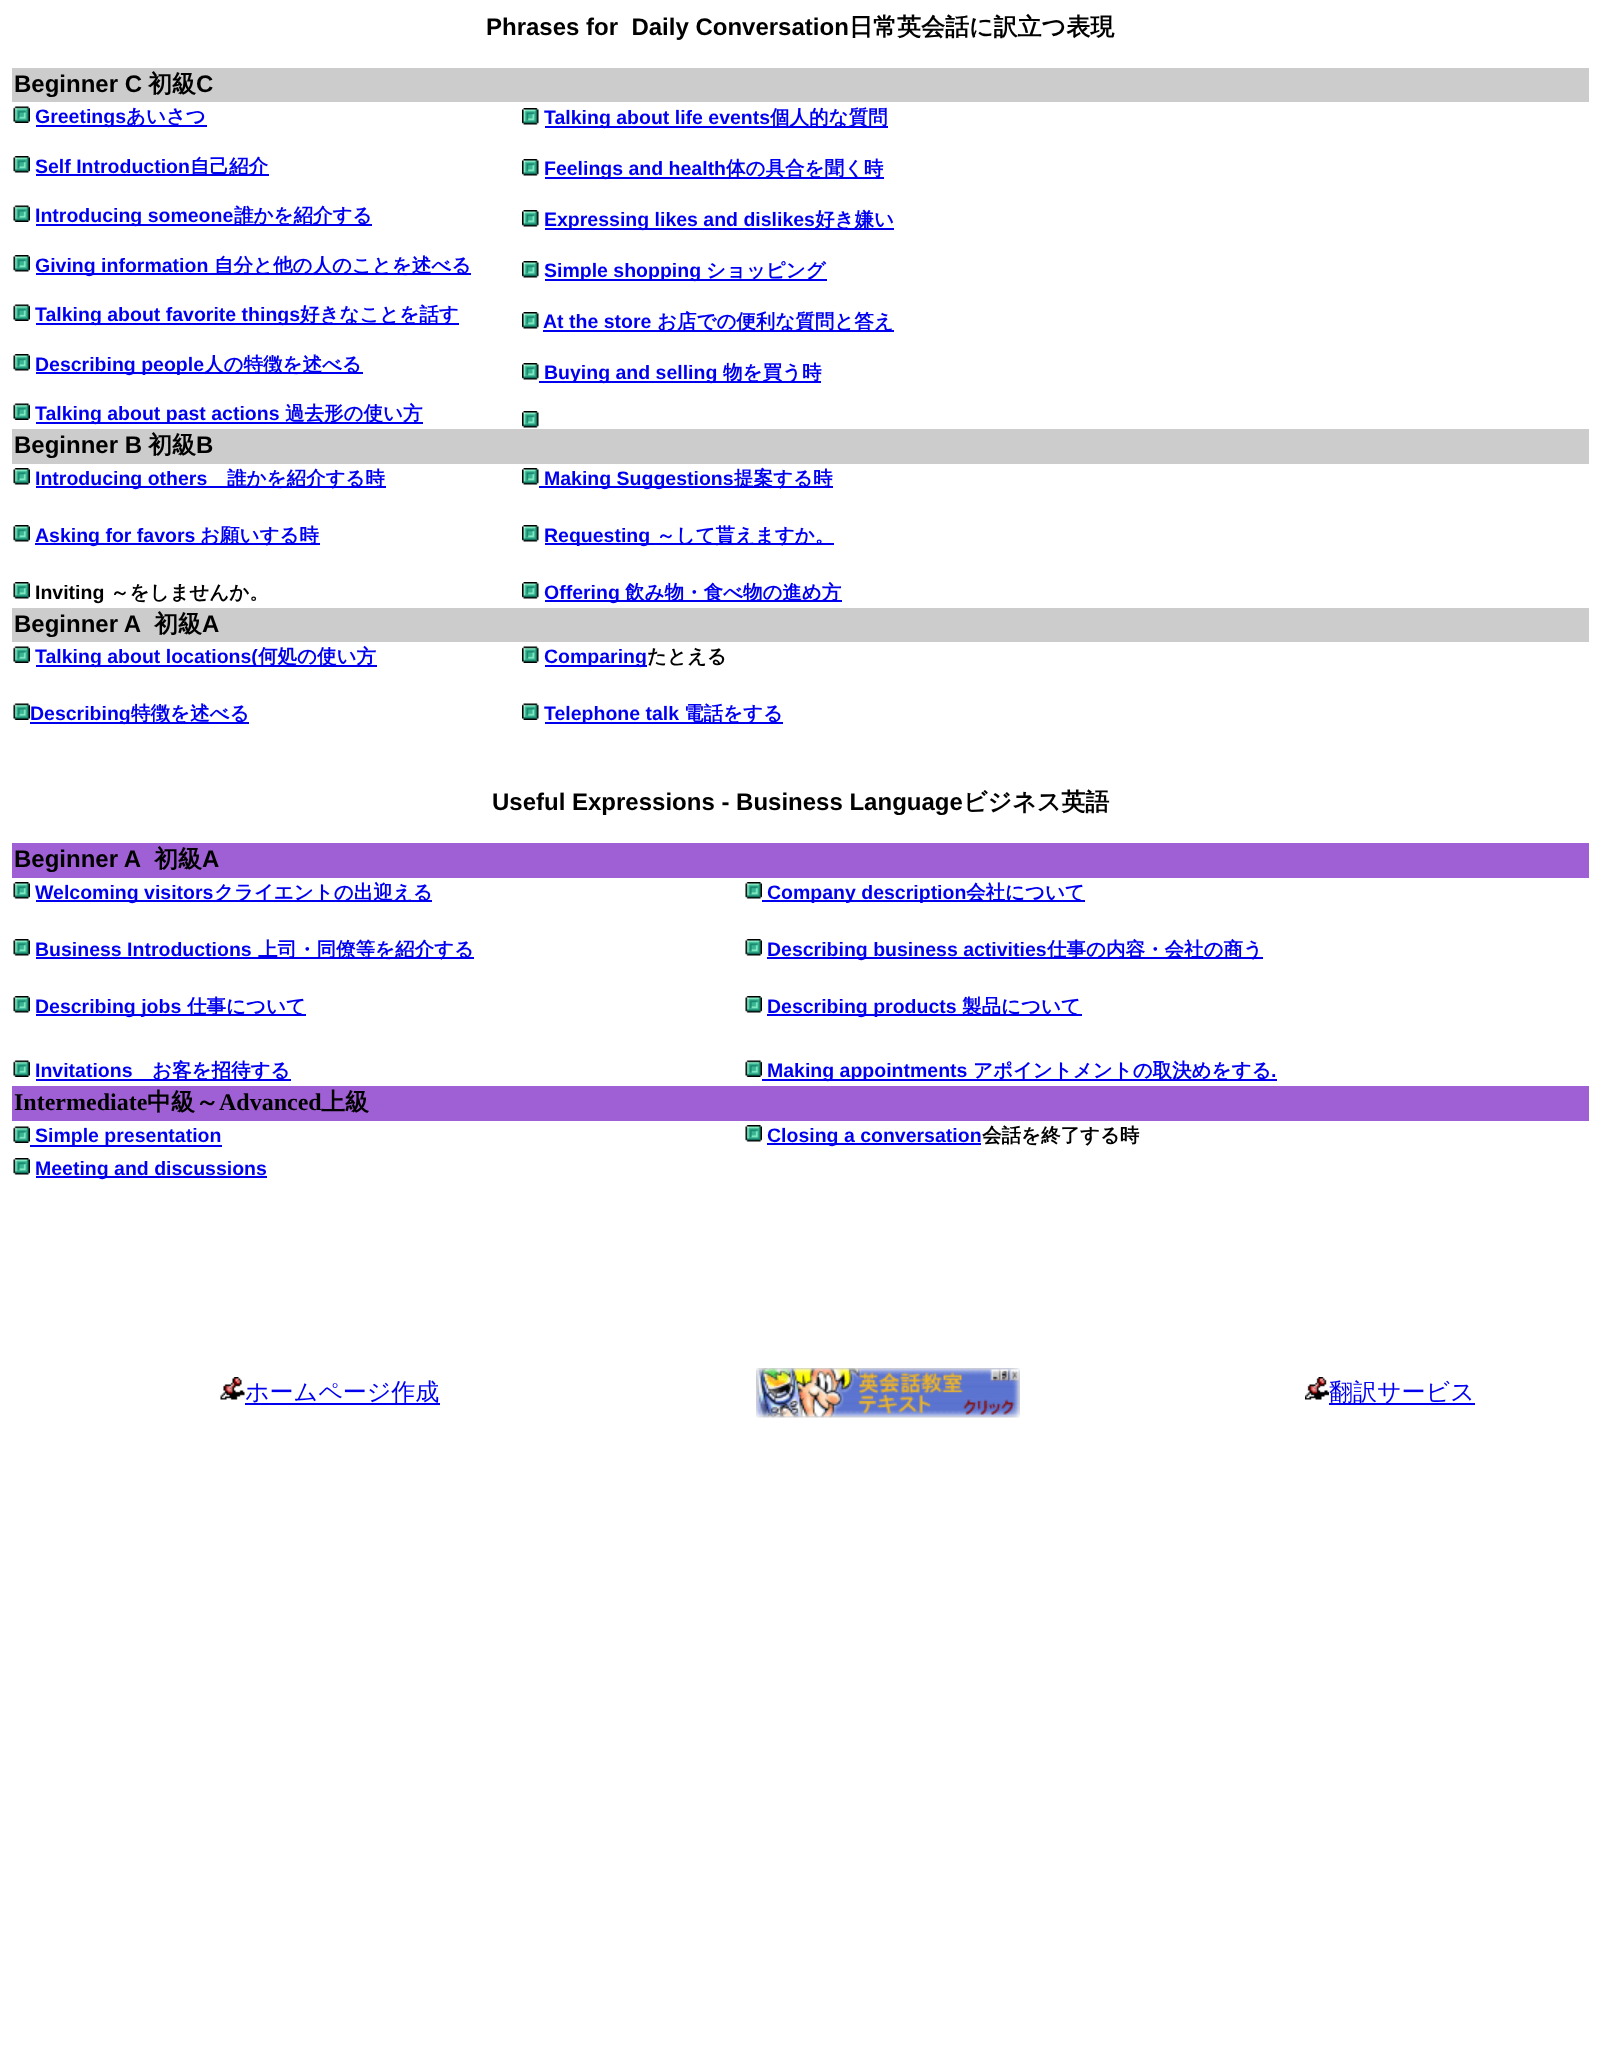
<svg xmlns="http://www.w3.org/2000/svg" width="1600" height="2071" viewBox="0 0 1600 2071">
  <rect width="100%" height="100%" fill="#fff"/>
  <path d="M12 68h1577v34H12z" fill="#ccc"/>
  <image x="13" y="106" width="17" height="17" href="img/1.png"/>
  <path d="M36 125h171v2H36z" fill="#00e"/>
  <image x="13" y="156" width="17" height="17" href="img/2.png"/>
  <path d="M36 174h233v2H36z" fill="#00e"/>
  <image x="13" y="205" width="17" height="17" href="img/1.png"/>
  <path d="M36 224h336v2H36z" fill="#00e"/>
  <image x="13" y="255" width="17" height="17" href="img/2.png"/>
  <path d="M36 273h435v2H36z" fill="#00e"/>
  <image x="13" y="304" width="17" height="17" href="img/1.png"/>
  <path d="M36 323h423v2H36z" fill="#00e"/>
  <image x="13" y="354" width="17" height="17" href="img/2.png"/>
  <path d="M36 372h327v2H36z" fill="#00e"/>
  <image x="13" y="403" width="17" height="17" href="img/1.png"/>
  <path d="M36 422h387v2H36z" fill="#00e"/>
  <image x="522" y="108" width="17" height="17" href="img/3.png"/>
  <path d="M545 126h343v2H545z" fill="#00e"/>
  <image x="522" y="159" width="17" height="17" href="img/3.png"/>
  <path d="M545 177h339v2H545z" fill="#00e"/>
  <image x="522" y="210" width="17" height="17" href="img/3.png"/>
  <path d="M545 228h349v2H545z" fill="#00e"/>
  <image x="522" y="261" width="17" height="17" href="img/3.png"/>
  <path d="M545 279h282v2H545z" fill="#00e"/>
  <image x="522" y="312" width="17" height="17" href="img/3.png"/>
  <path d="M543 330h351v2H543z" fill="#00e"/>
  <image x="522" y="363" width="17" height="17" href="img/3.png"/>
  <path d="M539 381h282v2H539z" fill="#00e"/>
  <image x="522" y="411" width="17" height="17" href="img/3.png"/>
  <path d="M12 429h1577v35H12z" fill="#ccc"/>
  <image x="13" y="468" width="17" height="17" href="img/2.png"/>
  <path d="M36 486h350v2H36z" fill="#00e"/>
  <image x="522" y="468" width="17" height="17" href="img/3.png"/>
  <path d="M539 486h294v2H539z" fill="#00e"/>
  <image x="13" y="525" width="17" height="17" href="img/2.png"/>
  <path d="M35 543h285v2H35z" fill="#00e"/>
  <image x="522" y="525" width="17" height="17" href="img/3.png"/>
  <path d="M545 543h289v2H545z" fill="#00e"/>
  <image x="13" y="582" width="17" height="17" href="img/2.png"/>
  <image x="522" y="582" width="17" height="17" href="img/3.png"/>
  <path d="M545 600h297v2H545z" fill="#00e"/>
  <path d="M12 608h1577v34H12z" fill="#ccc"/>
  <image x="13" y="646" width="17" height="17" href="img/1.png"/>
  <path d="M36 665h341v2H36z" fill="#00e"/>
  <image x="522" y="646" width="17" height="17" href="img/4.png"/>
  <path d="M545 665h102v2H545z" fill="#00e"/>
  <image x="13" y="703" width="17" height="17" href="img/1.png"/>
  <path d="M30 722h219v2H30z" fill="#00e"/>
  <image x="522" y="703" width="17" height="17" href="img/4.png"/>
  <path d="M545 722h238v2H545z" fill="#00e"/>
  <path d="M12 843h1577v35H12z" fill="#a060d5"/>
  <image x="13" y="882" width="17" height="17" href="img/2.png"/>
  <path d="M36 900h396v2H36z" fill="#00e"/>
  <image x="745" y="882" width="17" height="17" href="img/5.png"/>
  <path d="M762 900h323v2H762z" fill="#00e"/>
  <image x="13" y="939" width="17" height="17" href="img/2.png"/>
  <path d="M36 957h438v2H36z" fill="#00e"/>
  <image x="745" y="939" width="17" height="17" href="img/5.png"/>
  <path d="M767 957h496v2H767z" fill="#00e"/>
  <image x="13" y="996" width="17" height="17" href="img/2.png"/>
  <path d="M36 1014h270v2H36z" fill="#00e"/>
  <image x="745" y="996" width="17" height="17" href="img/5.png"/>
  <path d="M767 1014h315v2H767z" fill="#00e"/>
  <image x="13" y="1060" width="17" height="17" href="img/1.png"/>
  <path d="M36 1079h255v2H36z" fill="#00e"/>
  <image x="745" y="1060" width="17" height="17" href="img/6.png"/>
  <path d="M762 1079h515v2H762z" fill="#00e"/>
  <path d="M12 1086h1577v35H12z" fill="#a060d5"/>
  <image x="13" y="1126" width="17" height="17" href="img/1.png"/>
  <path d="M30 1145h192v2H30z" fill="#00e"/>
  <image x="745" y="1125" width="17" height="17" href="img/5.png"/>
  <path d="M767 1143h214v2H767z" fill="#00e"/>
  <image x="13" y="1158" width="17" height="17" href="img/2.png"/>
  <path d="M36 1176h231v2H36z" fill="#00e"/>
  <image x="220" y="1377" width="25" height="23" href="img/7.png"/>
  <path d="M245 1403h195v2H245z" fill="#00e"/>
  <image x="756" y="1368" width="264" height="50" href="img/8.png"/>
  <image x="1305" y="1377" width="24" height="23" href="img/9.png"/>
  <path d="M1329 1403h146v2H1329z" fill="#00e"/>
  <text x="486" y="35" font-family="Liberation Sans" font-size="24" font-weight="bold" fill="#000" xml:space="preserve">Phrases for  Daily Conversation</text>
  <text x="849" y="35" font-family="WenQuanYi Zen Hei" font-size="24" font-weight="bold" fill="#000">日常英会話に訳立つ表現</text>
  <text x="14" y="92" font-family="Liberation Sans" font-size="24" font-weight="bold" fill="#000">Beginner C</text>
  <text x="148" y="92" font-family="WenQuanYi Zen Hei" font-size="24" font-weight="bold" fill="#000">初級</text>
  <text x="196" y="92" font-family="Liberation Sans" font-size="24" font-weight="bold" fill="#000">C</text>
  <text x="35" y="123" font-family="Liberation Sans" font-size="19.5" font-weight="bold" fill="#00e">Greetings</text>
  <text x="126" y="123" font-family="WenQuanYi Zen Hei" font-size="19.5" font-weight="bold" fill="#00e">あいさつ</text>
  <text x="35" y="173" font-family="Liberation Sans" font-size="19.5" font-weight="bold" fill="#00e">Self Introduction</text>
  <text x="190" y="173" font-family="WenQuanYi Zen Hei" font-size="19.5" font-weight="bold" fill="#00e">自己紹介</text>
  <text x="35" y="222" font-family="Liberation Sans" font-size="19.5" font-weight="bold" fill="#00e">Introducing someone</text>
  <text x="234" y="222" font-family="WenQuanYi Zen Hei" font-size="19.5" font-weight="bold" fill="#00e">誰かを紹介する</text>
  <text x="35" y="272" font-family="Liberation Sans" font-size="19.5" font-weight="bold" fill="#00e">Giving information</text>
  <text x="214" y="272" font-family="WenQuanYi Zen Hei" font-size="19.5" font-weight="bold" fill="#00e">自分と他の人のことを述べる</text>
  <text x="35" y="321" font-family="Liberation Sans" font-size="19.5" font-weight="bold" fill="#00e">Talking about favorite things</text>
  <text x="300" y="321" font-family="WenQuanYi Zen Hei" font-size="19.5" font-weight="bold" fill="#00e">好きなことを話す</text>
  <text x="35" y="371" font-family="Liberation Sans" font-size="19.5" font-weight="bold" fill="#00e">Describing people</text>
  <text x="204" y="371" font-family="WenQuanYi Zen Hei" font-size="19.5" font-weight="bold" fill="#00e">人の特徴を述べる</text>
  <text x="35" y="420" font-family="Liberation Sans" font-size="19.5" font-weight="bold" fill="#00e">Talking about past actions</text>
  <text x="285" y="420" font-family="WenQuanYi Zen Hei" font-size="19.5" font-weight="bold" fill="#00e">過去形の使い方</text>
  <text x="544" y="124" font-family="Liberation Sans" font-size="19.5" font-weight="bold" fill="#00e">Talking about life events</text>
  <text x="770" y="124" font-family="WenQuanYi Zen Hei" font-size="19.5" font-weight="bold" fill="#00e">個人的な質問</text>
  <text x="544" y="175" font-family="Liberation Sans" font-size="19.5" font-weight="bold" fill="#00e">Feelings and health</text>
  <text x="726" y="175" font-family="WenQuanYi Zen Hei" font-size="19.5" font-weight="bold" fill="#00e">体の具合を聞く時</text>
  <text x="544" y="226" font-family="Liberation Sans" font-size="19.5" font-weight="bold" fill="#00e">Expressing likes and dislikes</text>
  <text x="815" y="226" font-family="WenQuanYi Zen Hei" font-size="19.5" font-weight="bold" fill="#00e">好き嫌い</text>
  <text x="544" y="277" font-family="Liberation Sans" font-size="19.5" font-weight="bold" fill="#00e">Simple shopping</text>
  <text x="706" y="277" font-family="WenQuanYi Zen Hei" font-size="19.5" font-weight="bold" fill="#00e">ショッピング</text>
  <text x="543" y="328" font-family="Liberation Sans" font-size="19.5" font-weight="bold" fill="#00e">At the store</text>
  <text x="657" y="328" font-family="WenQuanYi Zen Hei" font-size="19.5" font-weight="bold" fill="#00e">お店での便利な質問と答え</text>
  <text x="544" y="379" font-family="Liberation Sans" font-size="19.5" font-weight="bold" fill="#00e">Buying and selling</text>
  <text x="723" y="379" font-family="WenQuanYi Zen Hei" font-size="19.5" font-weight="bold" fill="#00e">物を買う時</text>
  <text x="14" y="453" font-family="Liberation Sans" font-size="24" font-weight="bold" fill="#000">Beginner B</text>
  <text x="148" y="453" font-family="WenQuanYi Zen Hei" font-size="24" font-weight="bold" fill="#000">初級</text>
  <text x="196" y="453" font-family="Liberation Sans" font-size="24" font-weight="bold" fill="#000">B</text>
  <text x="35" y="485" font-family="Liberation Sans" font-size="19.5" font-weight="bold" fill="#00e">Introducing others</text>
  <text x="227" y="485" font-family="WenQuanYi Zen Hei" font-size="19.5" font-weight="bold" fill="#00e">誰かを紹介する時</text>
  <text x="544" y="485" font-family="Liberation Sans" font-size="19.5" font-weight="bold" fill="#00e">Making Suggestions</text>
  <text x="734" y="485" font-family="WenQuanYi Zen Hei" font-size="19.5" font-weight="bold" fill="#00e">提案する時</text>
  <text x="35" y="542" font-family="Liberation Sans" font-size="19.5" font-weight="bold" fill="#00e">Asking for favors</text>
  <text x="200" y="542" font-family="WenQuanYi Zen Hei" font-size="19.5" font-weight="bold" fill="#00e">お願いする時</text>
  <text x="544" y="542" font-family="Liberation Sans" font-size="19.5" font-weight="bold" fill="#00e">Requesting</text>
  <text x="656" y="542" font-family="WenQuanYi Zen Hei" font-size="19.5" font-weight="bold" fill="#00e">～して貰えますか。</text>
  <text x="35" y="599" font-family="Liberation Sans" font-size="19.5" font-weight="bold" fill="#000">Inviting</text>
  <text x="110" y="599" font-family="WenQuanYi Zen Hei" font-size="19.5" font-weight="bold" fill="#000">～をしませんか。</text>
  <text x="544" y="599" font-family="Liberation Sans" font-size="19.5" font-weight="bold" fill="#00e">Offering</text>
  <text x="625" y="599" font-family="WenQuanYi Zen Hei" font-size="19.5" font-weight="bold" fill="#00e">飲み物・食べ物の進め方</text>
  <text x="14" y="632" font-family="Liberation Sans" font-size="24" font-weight="bold" fill="#000">Beginner A</text>
  <text x="154" y="632" font-family="WenQuanYi Zen Hei" font-size="24" font-weight="bold" fill="#000">初級</text>
  <text x="202" y="632" font-family="Liberation Sans" font-size="24" font-weight="bold" fill="#000">A</text>
  <text x="35" y="663" font-family="Liberation Sans" font-size="19.5" font-weight="bold" fill="#00e">Talking about locations(</text>
  <text x="258" y="663" font-family="WenQuanYi Zen Hei" font-size="19.5" font-weight="bold" fill="#00e">何処の使い方</text>
  <text x="544" y="663" font-family="Liberation Sans" font-size="19.5" font-weight="bold" fill="#00e">Comparing</text>
  <text x="647" y="663" font-family="WenQuanYi Zen Hei" font-size="19.5" font-weight="bold" fill="#000">たとえる</text>
  <text x="30" y="720" font-family="Liberation Sans" font-size="19.5" font-weight="bold" fill="#00e">Describing</text>
  <text x="131" y="720" font-family="WenQuanYi Zen Hei" font-size="19.5" font-weight="bold" fill="#00e">特徴を述べる</text>
  <text x="544" y="720" font-family="Liberation Sans" font-size="19.5" font-weight="bold" fill="#00e">Telephone talk</text>
  <text x="684" y="720" font-family="WenQuanYi Zen Hei" font-size="19.5" font-weight="bold" fill="#00e">電話をする</text>
  <text x="492" y="810" font-family="Liberation Sans" font-size="24" font-weight="bold" fill="#000">Useful Expressions - Business Language</text>
  <text x="963" y="810" font-family="WenQuanYi Zen Hei" font-size="24" font-weight="bold" fill="#000">ビジネス英語</text>
  <text x="14" y="867" font-family="Liberation Sans" font-size="24" font-weight="bold" fill="#000">Beginner A</text>
  <text x="154" y="867" font-family="WenQuanYi Zen Hei" font-size="24" font-weight="bold" fill="#000">初級</text>
  <text x="202" y="867" font-family="Liberation Sans" font-size="24" font-weight="bold" fill="#000">A</text>
  <text x="35" y="899" font-family="Liberation Sans" font-size="19.5" font-weight="bold" fill="#00e">Welcoming visitors</text>
  <text x="214" y="899" font-family="WenQuanYi Zen Hei" font-size="19.5" font-weight="bold" fill="#00e">クライエントの出迎える</text>
  <text x="767" y="899" font-family="Liberation Sans" font-size="19.5" font-weight="bold" fill="#00e">Company description</text>
  <text x="966" y="899" font-family="WenQuanYi Zen Hei" font-size="19.5" font-weight="bold" fill="#00e">会社について</text>
  <text x="35" y="956" font-family="Liberation Sans" font-size="19.5" font-weight="bold" fill="#00e">Business Introductions</text>
  <text x="258" y="956" font-family="WenQuanYi Zen Hei" font-size="19.5" font-weight="bold" fill="#00e">上司・同僚等を紹介する</text>
  <text x="767" y="956" font-family="Liberation Sans" font-size="19.5" font-weight="bold" fill="#00e">Describing business activities</text>
  <text x="1047" y="956" font-family="WenQuanYi Zen Hei" font-size="19.5" font-weight="bold" fill="#00e">仕事の内容・会社の商う</text>
  <text x="35" y="1013" font-family="Liberation Sans" font-size="19.5" font-weight="bold" fill="#00e">Describing jobs</text>
  <text x="187" y="1013" font-family="WenQuanYi Zen Hei" font-size="19.5" font-weight="bold" fill="#00e">仕事について</text>
  <text x="767" y="1013" font-family="Liberation Sans" font-size="19.5" font-weight="bold" fill="#00e">Describing products</text>
  <text x="962" y="1013" font-family="WenQuanYi Zen Hei" font-size="19.5" font-weight="bold" fill="#00e">製品について</text>
  <text x="35" y="1077" font-family="Liberation Sans" font-size="19.5" font-weight="bold" fill="#00e">Invitations</text>
  <text x="152" y="1077" font-family="WenQuanYi Zen Hei" font-size="19.5" font-weight="bold" fill="#00e">お客を招待する</text>
  <text x="767" y="1077" font-family="Liberation Sans" font-size="19.5" font-weight="bold" fill="#00e">Making appointments</text>
  <text x="973" y="1077" font-family="WenQuanYi Zen Hei" font-size="19.5" font-weight="bold" fill="#00e">アポイントメントの取決めをする</text>
  <text x="1271" y="1077" font-family="Liberation Sans" font-size="19.5" font-weight="bold" fill="#00e">.</text>
  <text x="14" y="1110" font-family="Liberation Serif" font-size="24" font-weight="bold" fill="#000">Intermediate</text>
  <text x="147" y="1110" font-family="WenQuanYi Zen Hei" font-size="24" font-weight="bold" fill="#000">中級～</text>
  <text x="219" y="1110" font-family="Liberation Serif" font-size="24" font-weight="bold" fill="#000">Advanced</text>
  <text x="321" y="1110" font-family="WenQuanYi Zen Hei" font-size="24" font-weight="bold" fill="#000">上級</text>
  <g font-family="Liberation Sans" font-size="19.5" font-weight="bold" fill="#00e">
    <text x="35" y="1142">Simple presentation</text>
    <text x="767" y="1142">Closing a conversation</text>
  </g>
  <text x="982" y="1142" font-family="WenQuanYi Zen Hei" font-size="19.5" font-weight="bold" fill="#000">会話を終了する時</text>
  <text x="35" y="1175" font-family="Liberation Sans" font-size="19.5" font-weight="bold" fill="#00e">Meeting and discussions</text>
  <g font-family="WenQuanYi Zen Hei" font-size="24" font-weight="500" fill="#00e">
    <text x="245" y="1400">ホームページ作成</text>
    <text x="1329" y="1400">翻訳サービス</text>
  </g>
</svg>
